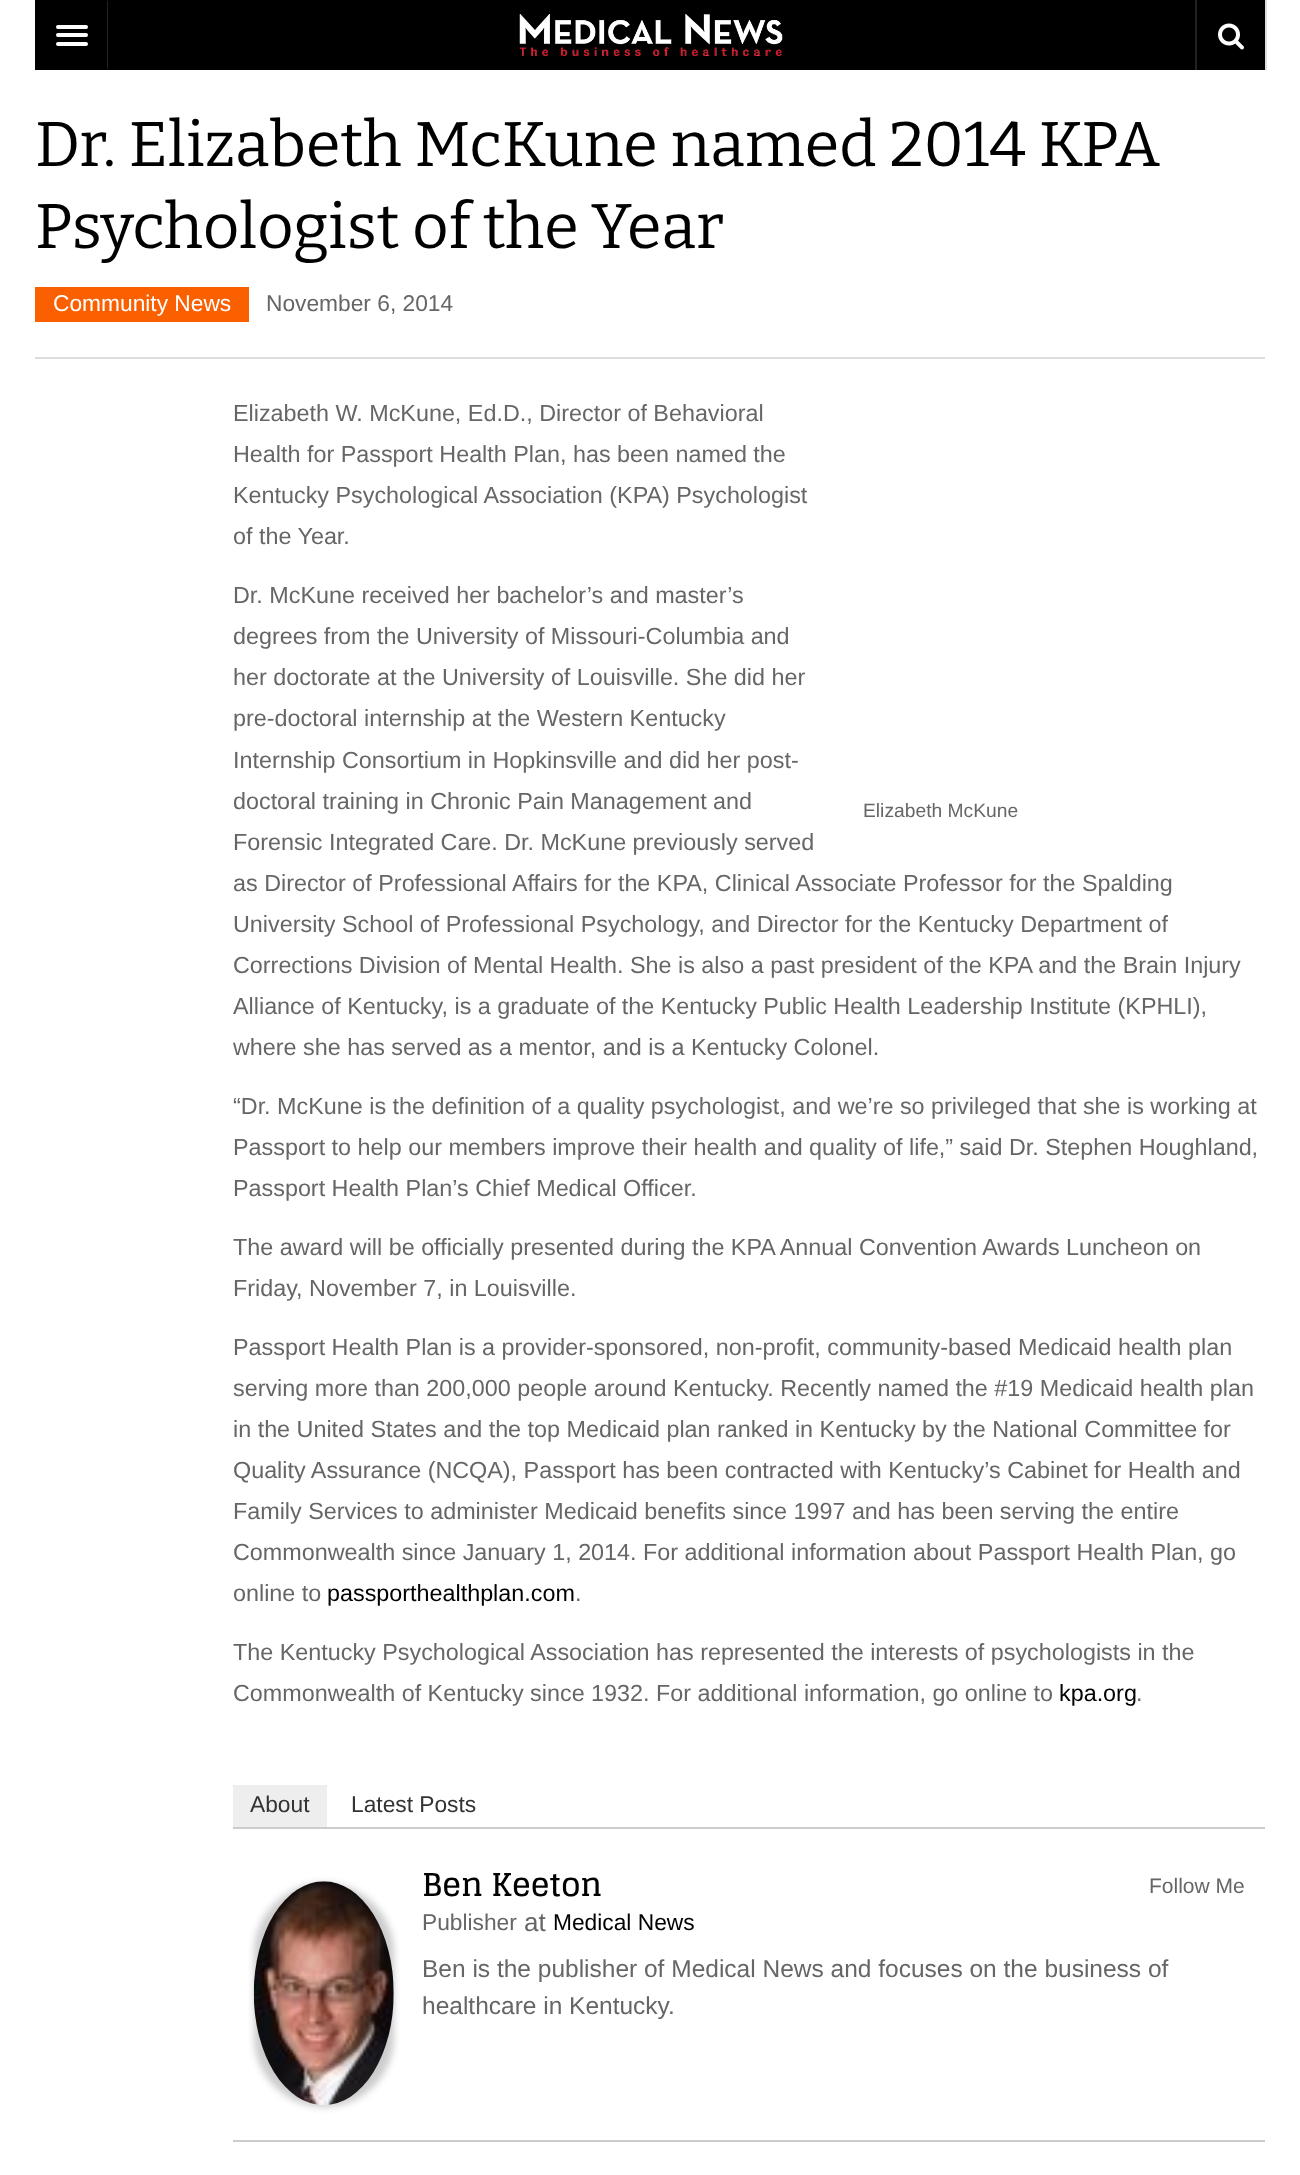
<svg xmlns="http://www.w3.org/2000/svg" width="1300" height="2175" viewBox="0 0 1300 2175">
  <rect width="100%" height="100%" fill="#fff"/>
  <path d="M1265 0h2v70H1265z" fill="#ddd"/>
  <path d="M35 0h1230v70H35z" fill="#000"/>
  <path d="M108 0V70L107 68V2Z" fill="#222"/>
  <rect x="56" y="25" width="32" height="4" rx="2" fill="#fff"/>
  <rect x="56" y="33" width="32" height="4" rx="2" fill="#fff"/>
  <rect x="56" y="42" width="32" height="4" rx="2" fill="#fff"/>
  <image x="519" y="14" width="264" height="42" href="img/1.png"/>
  <path d="M1195 0h2v70H1195z" fill="#222"/>
  <image x="1218" y="23" width="26" height="27" href="img/2.png"/>
  <path d="M35 357h1230v2H35z" fill="#ddd"/>
  <path d="M35 287h214v35H35z" fill="#fa5f00"/>
  <path d="M233 1827h1032v2H233z" fill="#ccc"/>
  <path d="M233 1785h94v42H233z" fill="#eee"/>
  <path d="M233 2140h1032v2H233z" fill="#ccc"/>
  <rect x="254" y="1883" width="140" height="224" rx="70" fill="#00000033" filter="blur(3.5px)"/>
  <image x="253" y="1881" width="141" height="224" href="img/3.png"/>
  <g font-family="Bitter" font-size="63" fill="#000">
    <text x="35" y="166">Dr. Elizabeth McKune named 2014 KPA</text>
    <text x="35" y="248">Psychologist of the Year</text>
  </g>
  <text x="53" y="311" font-family="Liberation Sans" font-size="22.75" fill="#fff">Community News</text>
  <text x="266" y="311" font-family="Liberation Sans" font-size="22.75" fill="#666">November 6, 2014</text>
  <g font-family="Liberation Sans" font-size="23.35" fill="#666">
    <text x="233" y="421">Elizabeth W. McKune, Ed.D., Director of Behavioral</text>
    <text x="233" y="462">Health for Passport Health Plan, has been named the</text>
    <text x="233" y="503">Kentucky Psychological Association (KPA) Psychologist</text>
    <text x="233" y="544">of the Year.</text>
    <text x="233" y="603">Dr. McKune received her bachelor’s and master’s</text>
    <text x="233" y="644">degrees from the University of Missouri-Columbia and</text>
    <text x="233" y="685">her doctorate at the University of Louisville. She did her</text>
    <text x="233" y="726">pre-doctoral internship at the Western Kentucky</text>
    <text x="233" y="768">Internship Consortium in Hopkinsville and did her post-</text>
    <text x="233" y="809">doctoral training in Chronic Pain Management and</text>
    <text x="233" y="850">Forensic Integrated Care. Dr. McKune previously served</text>
    <text x="233" y="891">as Director of Professional Affairs for the KPA, Clinical Associate Professor for the Spalding</text>
    <text x="233" y="932">University School of Professional Psychology, and Director for the Kentucky Department of</text>
    <text x="233" y="973">Corrections Division of Mental Health. She is also a past president of the KPA and the Brain Injury</text>
    <text x="233" y="1014">Alliance of Kentucky, is a graduate of the Kentucky Public Health Leadership Institute (KPHLI),</text>
    <text x="233" y="1055">where she has served as a mentor, and is a Kentucky Colonel.</text>
  </g>
  <text x="863" y="817" font-family="Liberation Sans" font-size="19.25" fill="#666">Elizabeth McKune</text>
  <g font-family="Liberation Sans" font-size="23.35" fill="#666">
    <text x="233" y="1114">“Dr. McKune is the definition of a quality psychologist, and we’re so privileged that she is working at</text>
    <text x="233" y="1155">Passport to help our members improve their health and quality of life,” said Dr. Stephen Houghland,</text>
    <text x="233" y="1196">Passport Health Plan’s Chief Medical Officer.</text>
    <text x="233" y="1255">The award will be officially presented during the KPA Annual Convention Awards Luncheon on</text>
    <text x="233" y="1296">Friday, November 7, in Louisville.</text>
    <text x="233" y="1355">Passport Health Plan is a provider-sponsored, non-profit, community-based Medicaid health plan</text>
    <text x="233" y="1396">serving more than 200,000 people around Kentucky. Recently named the #19 Medicaid health plan</text>
    <text x="233" y="1437">in the United States and the top Medicaid plan ranked in Kentucky by the National Committee for</text>
    <text x="233" y="1478">Quality Assurance (NCQA), Passport has been contracted with Kentucky’s Cabinet for Health and</text>
    <text x="233" y="1519">Family Services to administer Medicaid benefits since 1997 and has been serving the entire</text>
    <text x="233" y="1560">Commonwealth since January 1, 2014. For additional information about Passport Health Plan, go</text>
    <text x="233" y="1601">online to</text>
  </g>
  <text x="327" y="1601" font-family="Liberation Sans" font-size="23.35" fill="#000">passporthealthplan.com</text>
  <g font-family="Liberation Sans" font-size="23.35" fill="#666">
    <text x="575" y="1601">.</text>
    <text x="233" y="1660">The Kentucky Psychological Association has represented the interests of psychologists in the</text>
    <text x="233" y="1701">Commonwealth of Kentucky since 1932. For additional information, go online to</text>
  </g>
  <text x="1059" y="1701" font-family="Liberation Sans" font-size="23.35" fill="#000">kpa.org</text>
  <text x="1136" y="1701" font-family="Liberation Sans" font-size="23.35" fill="#666">.</text>
  <g font-family="Liberation Sans" font-size="22.75" fill="#333">
    <text x="250" y="1812">About</text>
    <text x="351" y="1812">Latest Posts</text>
  </g>
  <text x="422" y="1896" font-family="Glegoo" font-size="31.5" font-weight="bold" fill="#000">Ben Keeton</text>
  <text x="422" y="1930" font-family="Liberation Sans" font-size="22.75" fill="#666">Publisher</text>
  <text x="524" y="1931" font-family="Liberation Sans" font-size="26" fill="#666">at</text>
  <text x="553" y="1930" font-family="Liberation Sans" font-size="22.75" fill="#000">Medical News</text>
  <g font-family="Liberation Sans" font-size="24.5" fill="#666">
    <text x="422" y="1977">Ben is the publisher of Medical News and focuses on the business of</text>
    <text x="422" y="2014">healthcare in Kentucky.</text>
  </g>
  <text x="1149" y="1893" font-family="Liberation Sans" font-size="21" fill="#666">Follow Me</text>
</svg>
